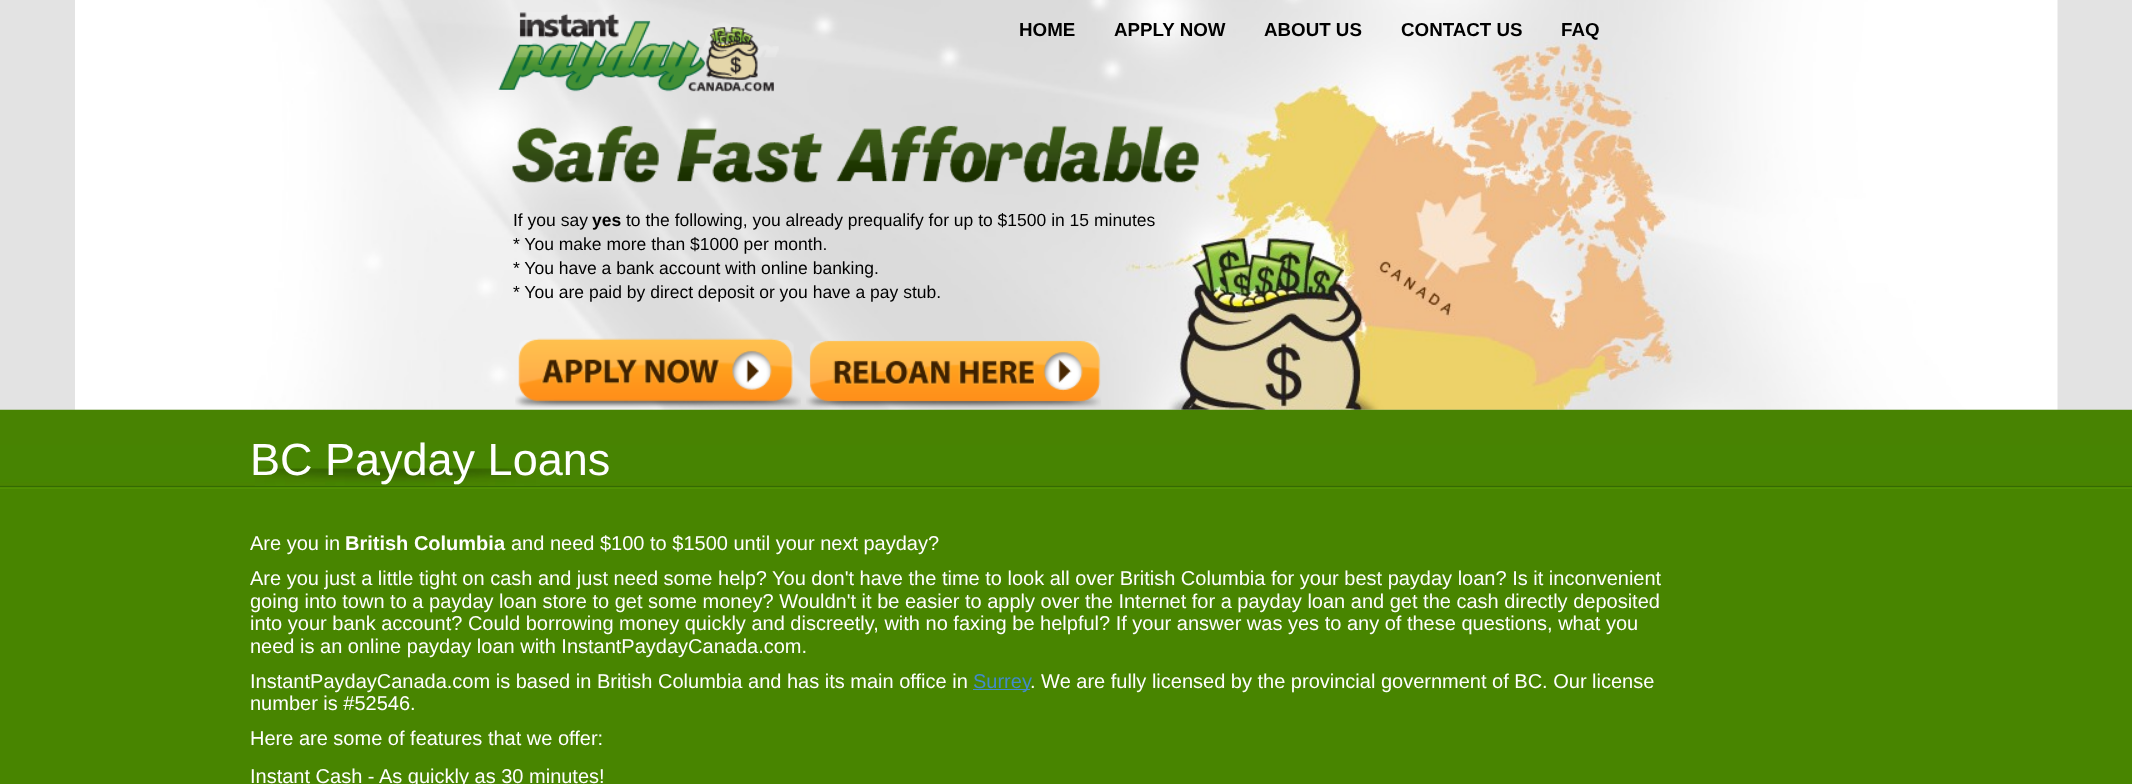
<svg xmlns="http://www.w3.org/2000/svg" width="2132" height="784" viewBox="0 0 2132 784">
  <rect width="100%" height="100%" fill="#e3e3e3"/>
  <image x="75" y="0" width="1983" height="410" href="img/1.png"/>
  <image x="498" y="12" width="281" height="80" href="img/2.png"/>
  <image x="512" y="125" width="687" height="58" href="img/3.png"/>
  <image x="515" y="338" width="286" height="70" href="img/4.png"/>
  <image x="806" y="340" width="295" height="68" href="img/5.png"/>
  <path d="M0 489h2132v295H0z" fill="#488500"/>
  <image x="0" y="409" width="2132" height="80" href="img/6.png"/>
  <image x="255" y="468" width="285" height="18" href="img/7.png"/>
  <path d="M973 689h57v1H973z" fill="#428bca"/>
  <g font-family="Liberation Sans" font-size="18.75" font-weight="bold" fill="#000">
    <text x="1019" y="36">HOME</text>
    <text x="1114" y="36">APPLY NOW</text>
    <text x="1264" y="36">ABOUT US</text>
    <text x="1401" y="36">CONTACT US</text>
    <text x="1561" y="36">FAQ</text>
  </g>
  <text x="513" y="226" font-family="Liberation Sans" font-size="17.5" fill="#000">If you say</text>
  <text x="592" y="226" font-family="Liberation Sans" font-size="17.5" font-weight="bold" fill="#000">yes</text>
  <g font-family="Liberation Sans" font-size="17.5" fill="#000">
    <text x="626" y="226">to the following, you already prequalify for up to $1500 in 15 minutes</text>
    <text x="513" y="250">* You make more than $1000 per month.</text>
    <text x="513" y="274">* You have a bank account with online banking.</text>
    <text x="513" y="298">* You are paid by direct deposit or you have a pay stub.</text>
  </g>
  <text x="250" y="475" font-family="Liberation Sans" font-size="45" fill="#fff">BC Payday Loans</text>
  <text x="250" y="550" font-family="Liberation Sans" font-size="20" fill="#fff">Are you in</text>
  <text x="345" y="550" font-family="Liberation Sans" font-size="20" font-weight="bold" fill="#fff">British Columbia</text>
  <g font-family="Liberation Sans" font-size="20" fill="#fff">
    <text x="511" y="550">and need $100 to $1500 until your next payday?</text>
    <text x="250" y="585">Are you just a little tight on cash and just need some help?</text>
    <text x="772" y="585">You don't have the time to look all over British Columbia for your best payday loan? Is it inconvenient</text>
    <text x="250" y="608">going into town to a payday loan store to get some money? Wouldn't it be easier to apply over the Internet for a payday loan and get the cash directly deposited</text>
    <text x="250" y="630">into your bank account? Could borrowing money quickly and discreetly, with no faxing be helpful? If your answer was yes to any of these questions, what you</text>
    <text x="250" y="653">need is an online payday loan with InstantPaydayCanada.com.</text>
    <text x="250" y="688">InstantPaydayCanada.com is based in British Columbia and has its main office in</text>
  </g>
  <text x="973" y="688" font-family="Liberation Sans" font-size="20" fill="#428bca">Surrey</text>
  <g font-family="Liberation Sans" font-size="20" fill="#fff">
    <text x="1030" y="688">. We are fully licensed by the provincial government of BC. Our license</text>
    <text x="250" y="710">number is #52546.</text>
    <text x="250" y="745">Here are some of features that we offer:</text>
    <text x="250" y="783">Instant Cash - As quickly as 30 minutes!</text>
  </g>
</svg>
